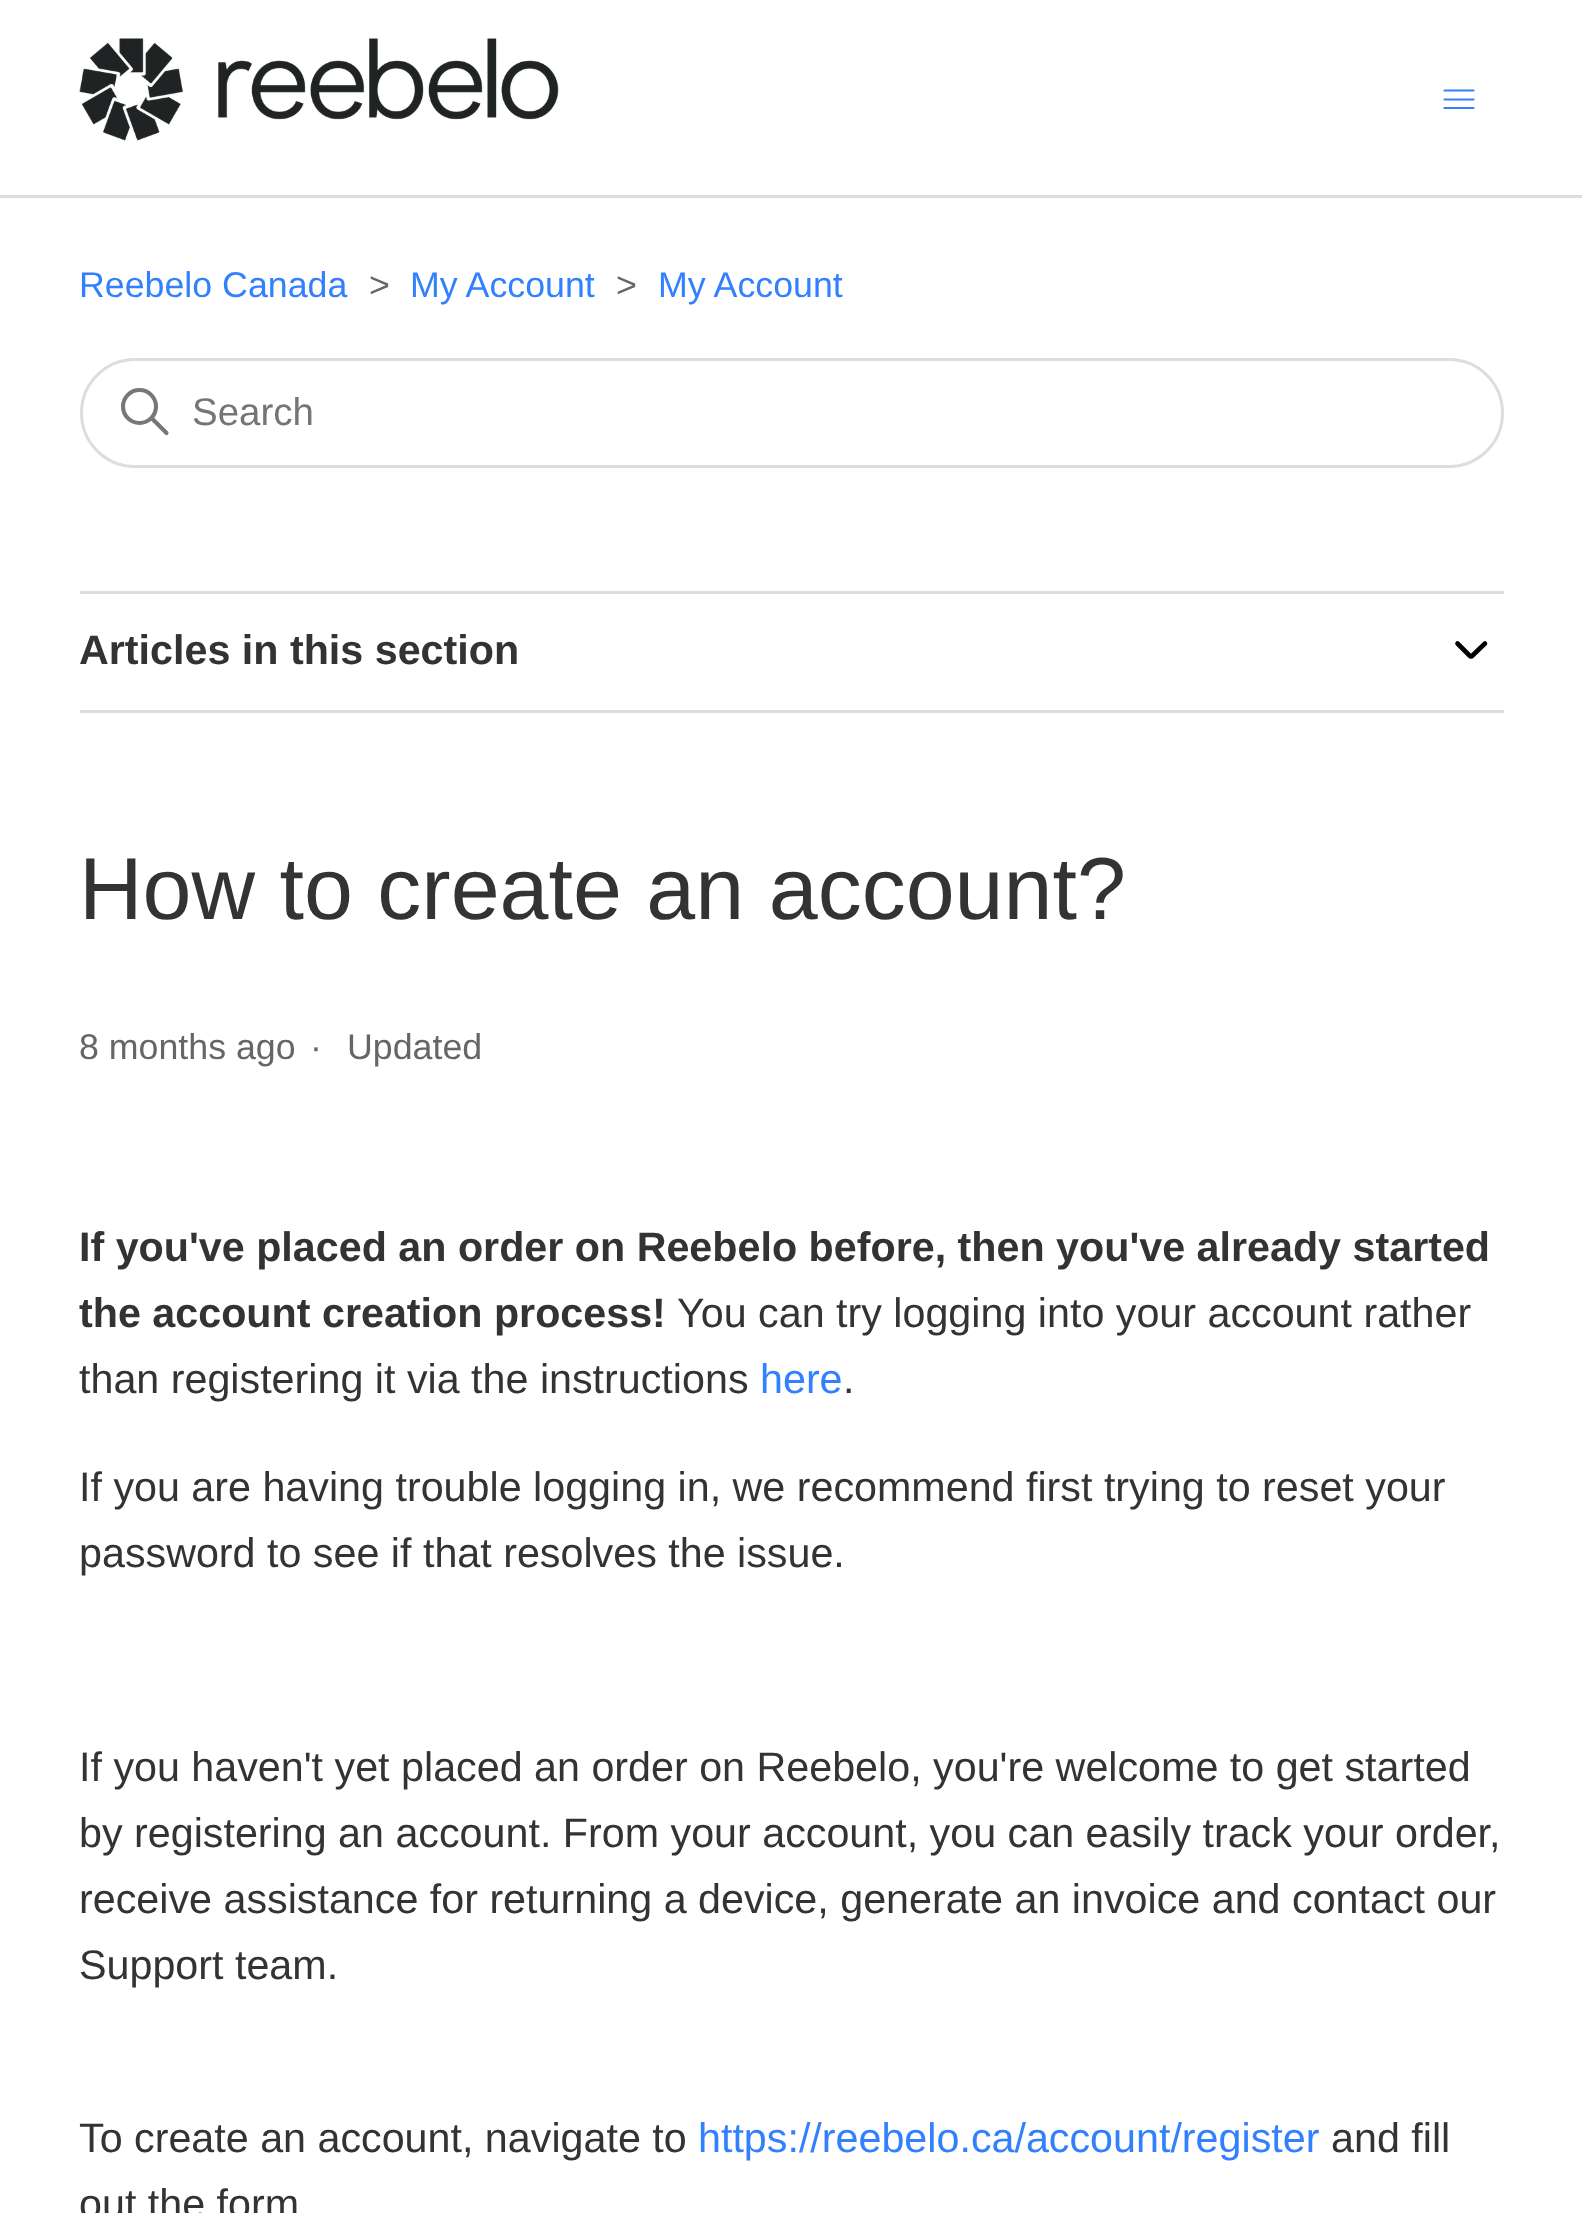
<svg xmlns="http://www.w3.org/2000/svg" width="1582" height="2213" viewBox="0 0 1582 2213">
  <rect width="100%" height="100%" fill="#fff"/>
  <image x="79" y="38" width="480" height="103" href="img/1.png"/>
  <path d="M1444.5 90.5H1473.5M1444.5 99.5H1473.5M1444.5 108H1473.5" fill="none" stroke="#3280fd" stroke-width="2.2" stroke-linecap="round"/>
  <path d="M0 195h1582v3H0z" fill="#ddd"/>
  <rect x="81.5" y="359.5" width="1421" height="107" rx="53.5" fill="none" stroke="#ddd" stroke-width="3"/>
  <circle cx="139.5" cy="406.5" r="16.5" fill="none" stroke="#777" stroke-width="4.1"/>
  <path d="M166.5 433L152 418.5" fill="none" stroke="#777" stroke-width="4.1" stroke-linecap="round"/>
  <path d="M80 591h1424v3H80z" fill="#ddd"/>
  <path d="M80 710h1424v3H80z" fill="#ddd"/>
  <path d="M1457.5 643.5L1469.5 655.5C1470.5 656.5 1471.5 656.5 1472.5 655.5L1485 643.5" fill="none" stroke="#000" stroke-width="4.6" stroke-linecap="round"/>
  <text x="79" y="297" font-family="Liberation Sans" font-size="35.75" fill="#3280fd">Reebelo Canada</text>
  <text x="369" y="297" font-family="Liberation Sans" font-size="35.75" fill="#666">&gt;</text>
  <text x="410" y="297" font-family="Liberation Sans" font-size="35.75" fill="#3280fd">My Account</text>
  <text x="616" y="297" font-family="Liberation Sans" font-size="35.75" fill="#666">&gt;</text>
  <text x="658" y="297" font-family="Liberation Sans" font-size="35.75" fill="#3280fd">My Account</text>
  <text x="192" y="425" font-family="Liberation Sans" font-size="38.5" fill="#757575">Search</text>
  <text x="79" y="664" font-family="Liberation Sans" font-size="41.25" font-weight="bold" fill="#333">Articles in this section</text>
  <text x="79" y="919" font-family="Liberation Sans" font-size="88" fill="#333">How to create an account?</text>
  <g font-family="Liberation Sans" font-size="35.75" fill="#666">
    <text x="79" y="1059">8 months ago</text>
    <text x="310" y="1059">·</text>
    <text x="347" y="1059">Updated</text>
  </g>
  <g font-family="Liberation Sans" font-size="41.25" font-weight="bold" fill="#333">
    <text x="79" y="1261">If you've placed an order on Reebelo before, then you've already started</text>
    <text x="79" y="1327">the account creation process!</text>
  </g>
  <g font-family="Liberation Sans" font-size="41.25" fill="#333">
    <text x="677" y="1327">You can try logging into your account rather</text>
    <text x="79" y="1393">than registering it via the instructions</text>
  </g>
  <text x="760" y="1393" font-family="Liberation Sans" font-size="41.25" fill="#3280fd">here</text>
  <g font-family="Liberation Sans" font-size="41.25" fill="#333">
    <text x="843" y="1393">.</text>
    <text x="79" y="1501">If you are having trouble logging in, we recommend first trying to reset your</text>
    <text x="79" y="1567">password to see if that resolves the issue.</text>
    <text x="79" y="1781">If you haven't yet placed an order on Reebelo, you're welcome to get started</text>
    <text x="79" y="1847">by registering an account. From your account, you can easily track your order,</text>
    <text x="79" y="1913">receive assistance for returning a device, generate an invoice and contact our</text>
    <text x="79" y="1979">Support team.</text>
    <text x="79" y="2152">To create an account, navigate to</text>
  </g>
  <text x="698" y="2152" font-family="Liberation Sans" font-size="41.25" fill="#3280fd">https://reebelo.ca/account/register</text>
  <g font-family="Liberation Sans" font-size="41.25" fill="#333">
    <text x="1331" y="2152">and fill</text>
    <text x="79" y="2218">out the form</text>
  </g>
</svg>
